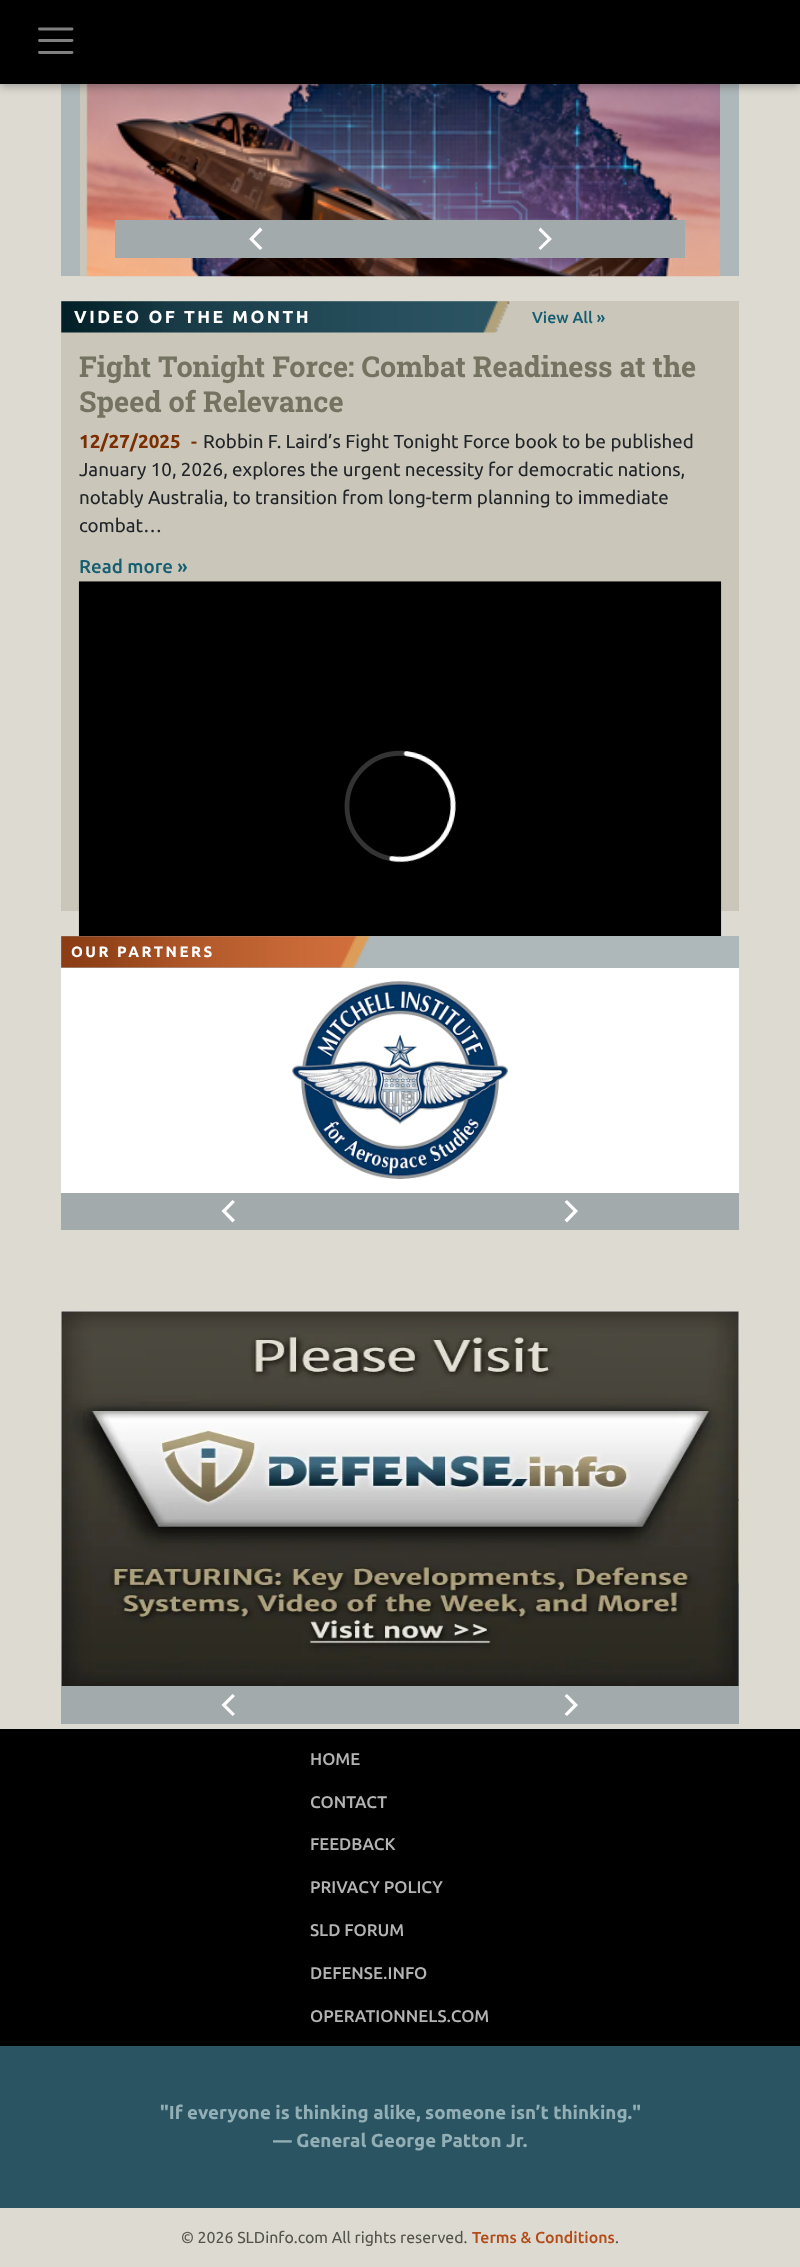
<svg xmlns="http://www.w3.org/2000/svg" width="800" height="2267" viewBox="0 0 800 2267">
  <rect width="100%" height="100%" fill="#dddad1"/>
  <path d="M61 84h678v192H61z" fill="#aeb7b9"/>
  <image x="80" y="84" width="640" height="193" href="img/1.png"/>
  <path d="M0 3h800v83H0z" fill="#08101354" filter="blur(5px)"/>
  <path d="M0 0h800v84H0z" fill="#000"/>
  <path d="M39.5 29H72M39.5 40.5H72M39.5 52.5H72" fill="none" stroke="#808080" stroke-width="2.9" stroke-linecap="round"/>
  <path d="M115 220h570v38H115z" fill="#a3aaac"/>
  <path d="M249 239L260 250L262.5 248L253.5 239L262.5 230L260 227.5Z" fill="#fff"/>
  <path d="M552 239L540.5 227.5L538.5 230L547.5 239L538.5 248L540.5 250Z" fill="#fff"/>
  <path d="M61 301h678v610H61z" fill="#cac6b9"/>
  <image x="61" y="301" width="449" height="32" href="img/2.png"/>
  <image x="78" y="581" width="644" height="355" href="img/3.png"/>
  <path d="M61 936h678v32H61z" fill="#aeb7b9"/>
  <image x="61" y="936" width="309" height="32" href="img/4.png"/>
  <path d="M61 968h678v225H61z" fill="#fff"/>
  <image x="292" y="981" width="216" height="198" href="img/5.png"/>
  <path d="M61 1193h678v37H61z" fill="#a3aaac"/>
  <path d="M221.5 1211L232.5 1222.5L235 1220L226 1211L235 1202L232.5 1200Z" fill="#fff"/>
  <path d="M578 1211L567 1200L564.5 1202L573.5 1211L564.5 1220L567 1222.5Z" fill="#fff"/>
  <path d="M61 1311h678v375H61z" fill="#fff"/>
  <image x="61" y="1311" width="678" height="375" href="img/6.png"/>
  <image x="738" y="1311" width="1" height="375" href="img/7.png"/>
  <path d="M61 1686h678v38H61z" fill="#a3aaac"/>
  <path d="M221.5 1705L232.5 1716L235 1714L226 1705L235 1696L232.5 1694Z" fill="#fff"/>
  <path d="M578 1705L567 1694L564.5 1696L573.5 1705L564.5 1714L567 1716Z" fill="#fff"/>
  <path d="M0 1729h800v317H0z" fill="#000"/>
  <path d="M0 2046h800v162H0z" fill="#2b5463"/>
  <text x="74" y="323" font-family="Ubuntu" font-size="17.5" font-weight="bold" letter-spacing="2.5" fill="#fff">VIDEO OF THE MONTH</text>
  <text x="532" y="323" font-family="Ubuntu" font-size="15.9" font-weight="500" fill="#155e71">View All »</text>
  <g font-family="Roboto Slab" font-size="28.75" font-weight="bold" fill="#747260">
    <text x="79" y="377">Fight Tonight Force: Combat Readiness at the</text>
    <text x="79" y="412">Speed of Relevance</text>
  </g>
  <text x="79" y="448" font-family="Ubuntu" font-size="18.75" font-weight="bold" fill="#7b2e00">12/27/2025</text>
  <text x="191" y="448" font-family="Ubuntu" font-size="18.75" font-weight="500" fill="#7b2e00">-</text>
  <g font-family="Ubuntu" font-size="18.75" fill="#212529">
    <text x="203" y="448">Robbin F. Laird’s Fight Tonight Force book to be published</text>
    <text x="79" y="476">January 10, 2026, explores the urgent necessity for democratic nations,</text>
    <text x="79" y="504">notably Australia, to transition from long-term planning to immediate</text>
    <text x="79" y="532">combat…</text>
  </g>
  <text x="79" y="573" font-family="Ubuntu" font-size="18.75" font-weight="500" fill="#155e71">Read more »</text>
  <text x="71" y="957" font-family="Ubuntu" font-size="15" font-weight="bold" letter-spacing="2.5" fill="#fff">OUR PARTNERS</text>
  <g font-family="Ubuntu" font-size="16.9" font-weight="500" fill="#b3b3b3">
    <text x="310" y="1765">HOME</text>
    <text x="310" y="1808">CONTACT</text>
    <text x="310" y="1850">FEEDBACK</text>
    <text x="310" y="1893">PRIVACY POLICY</text>
    <text x="310" y="1936">SLD FORUM</text>
    <text x="310" y="1979">DEFENSE.INFO</text>
    <text x="310" y="2022">OPERATIONNELS.COM</text>
  </g>
  <g font-family="Ubuntu" font-size="18.75" font-weight="bold" fill="#93afb6">
    <text x="160" y="2119">"If everyone is thinking alike, someone isn’t thinking."</text>
    <text x="273" y="2147">— General George Patton Jr.</text>
  </g>
  <text x="181" y="2243" font-family="Ubuntu" font-size="15.9" fill="#53544c">© 2026 SLDinfo.com All rights reserved.</text>
  <text x="472" y="2243" font-family="Ubuntu" font-size="15.9" font-weight="500" fill="#b24c18">Terms &amp; Conditions</text>
  <text x="615" y="2243" font-family="Ubuntu" font-size="15.9" fill="#53544c">.</text>
</svg>
